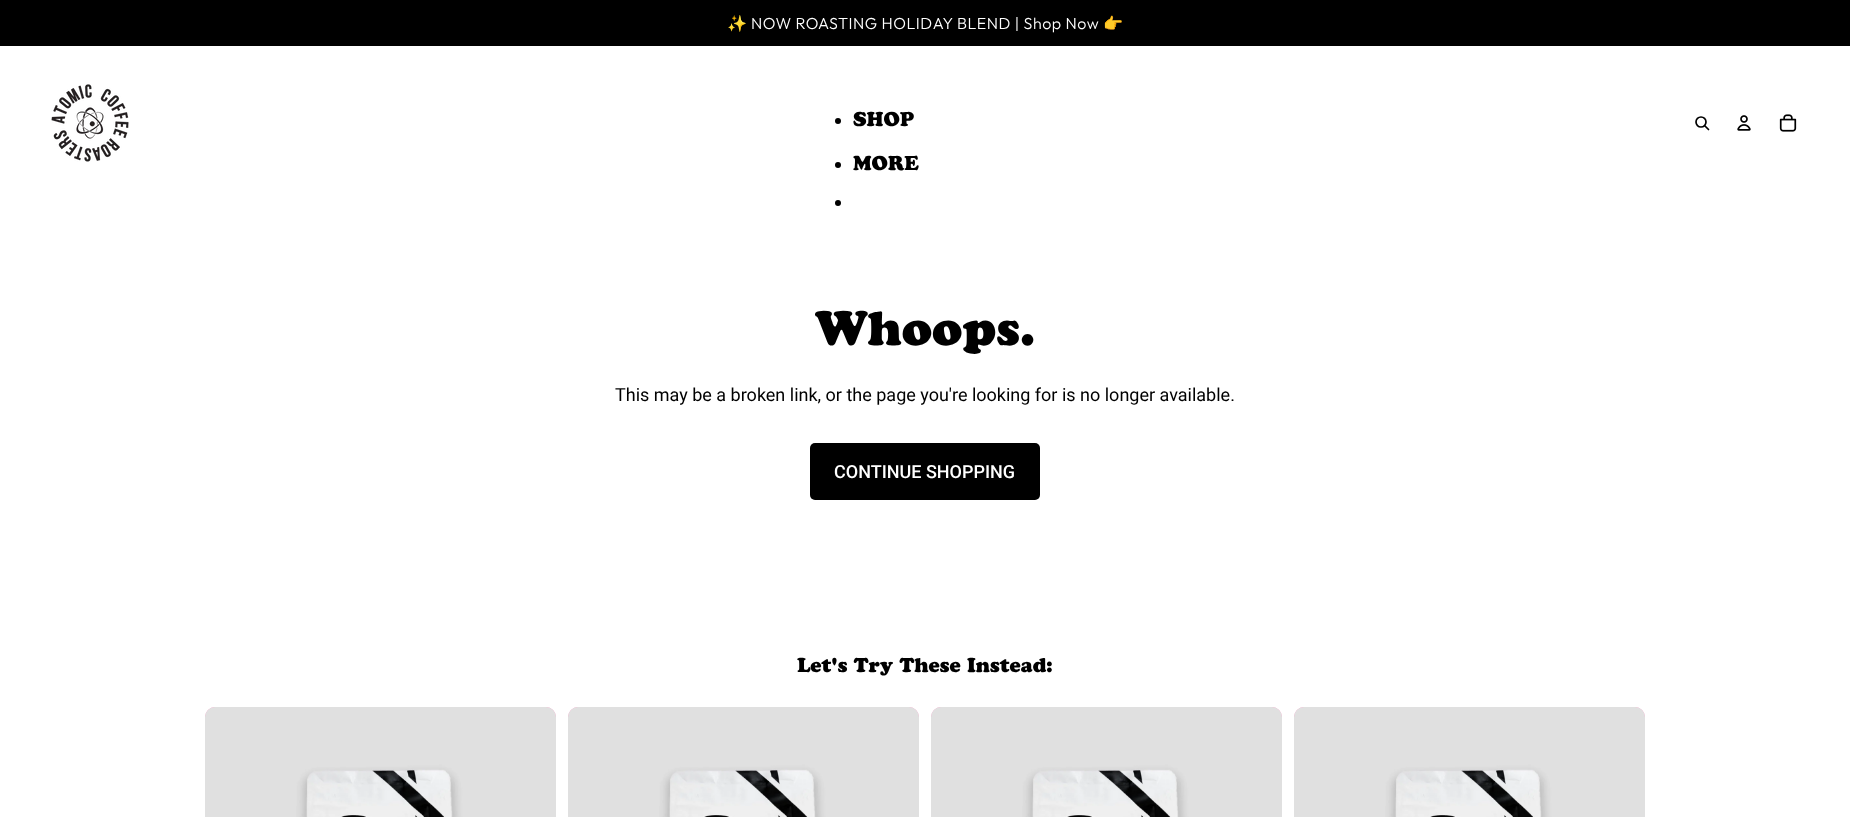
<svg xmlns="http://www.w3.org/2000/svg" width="1850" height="817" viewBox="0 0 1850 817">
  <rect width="100%" height="100%" fill="#fff"/>
  <path d="M0 0h1850v46H0z" fill="#000"/>
  <image x="51" y="84" width="78" height="78" href="img/1.png"/>
  <circle cx="838" cy="121" r="3" fill="#000"/>
  <circle cx="838" cy="165" r="3" fill="#000"/>
  <circle cx="838" cy="203" r="3" fill="#000"/>
  <circle cx="1701" cy="122" r="5" fill="none" stroke="#000" stroke-width="1.7"/>
  <path d="M1705 126L1708.5 129.5" fill="none" stroke="#000" stroke-width="1.7" stroke-linecap="round" stroke-linejoin="round"/>
  <image x="1737" y="115" width="14" height="16" href="img/2.png"/>
  <image x="1779" y="114" width="18" height="18" href="img/3.png"/>
  <rect x="810" y="443" width="230" height="57" rx="5" fill="#000"/>
  <rect x="205" y="707" width="351" height="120" rx="10" fill="#f99fc9"/>
  <image x="205" y="707" width="351" height="110" href="img/4.png"/>
  <rect x="568" y="707" width="351" height="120" rx="10" fill="#f99fc9"/>
  <image x="568" y="707" width="351" height="110" href="img/5.png"/>
  <rect x="931" y="707" width="351" height="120" rx="10" fill="#f99fc9"/>
  <image x="931" y="707" width="351" height="110" href="img/6.png"/>
  <rect x="1294" y="707" width="351" height="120" rx="10" fill="#f99fc9"/>
  <image x="1294" y="707" width="351" height="110" href="img/7.png"/>
  <text x="727" y="29" font-family="Noto Color Emoji" font-size="16" letter-spacing="0.5" fill="#fff">✨</text>
  <text x="751" y="29" font-family="Outfit" font-size="16" font-weight="300" letter-spacing="0.5" fill="#fff">NOW ROASTING HOLIDAY BLEND | Shop Now</text>
  <text x="1103" y="29" font-family="Noto Color Emoji" font-size="16" letter-spacing="0.5" fill="#fff">👉</text>
  <g font-family="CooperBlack" font-size="20" font-weight="900" fill="#000">
    <text x="853" y="126">SHOP</text>
    <text x="853" y="170">MORE</text>
  </g>
  <text x="815" y="345" font-family="CooperBlack" font-size="48" font-weight="900" fill="#000">Whoops.</text>
  <text x="615" y="401" font-family="Roboto" font-size="18" fill="#000">This may be a broken link, or the page you're looking for is no longer available.</text>
  <text x="834" y="478" font-family="Roboto" font-size="18" font-weight="500" fill="#fff">CONTINUE SHOPPING</text>
  <text x="797" y="672" font-family="CooperBlack" font-size="20" font-weight="900" fill="#000">Let's Try These Instead:</text>
</svg>
